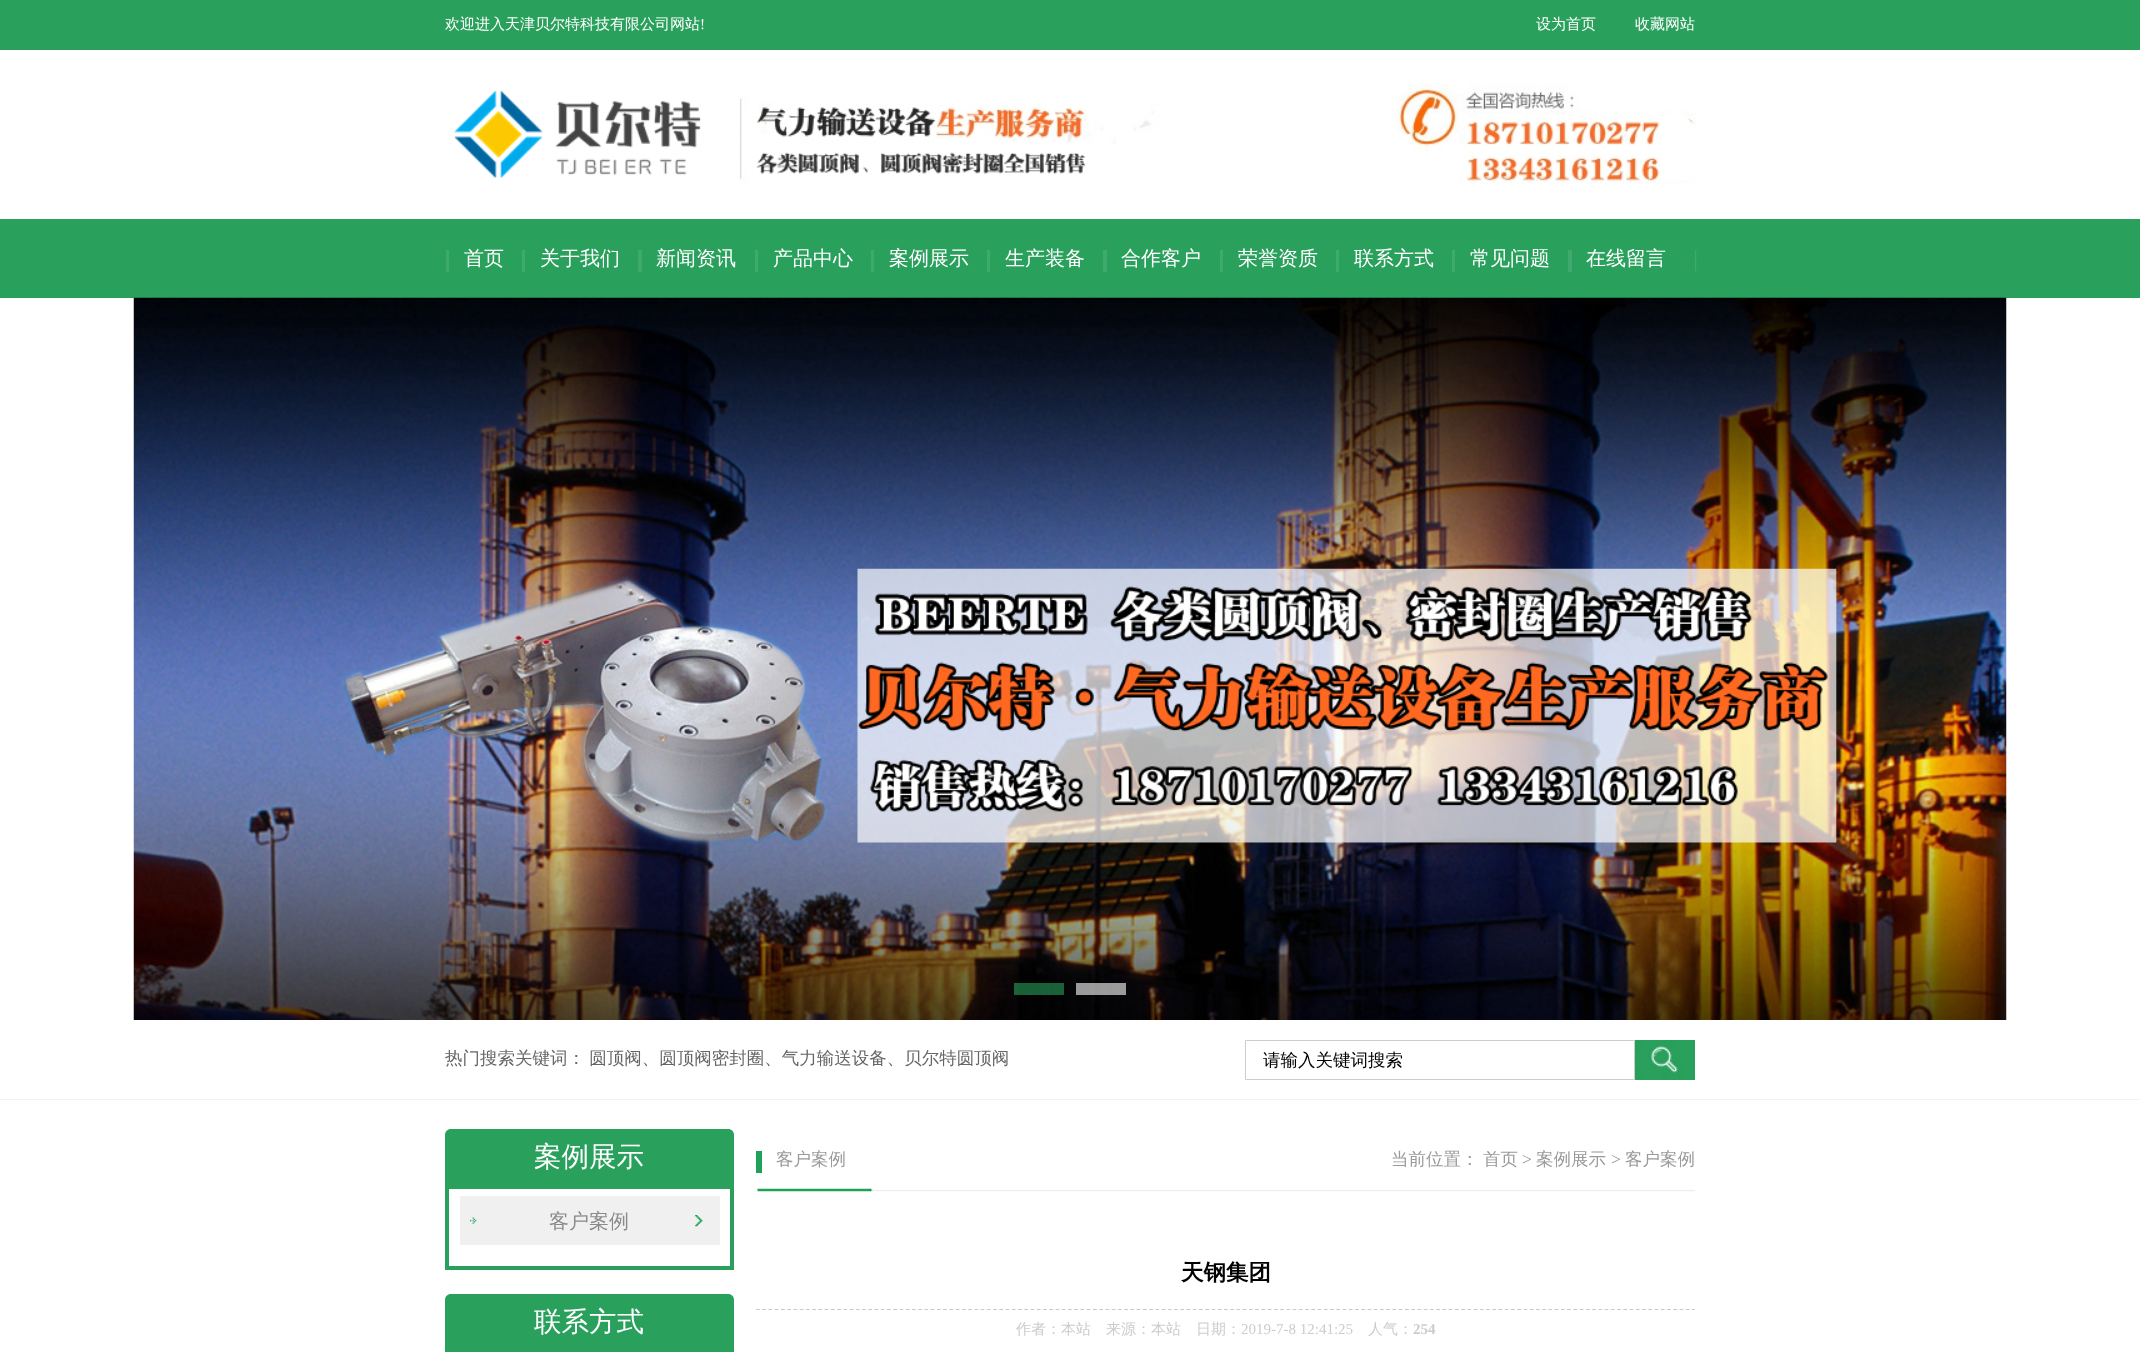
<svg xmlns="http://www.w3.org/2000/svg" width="2140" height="1352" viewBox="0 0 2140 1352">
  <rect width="100%" height="100%" fill="#fff"/>
  <path d="M0 0h2140v50H0z" fill="#29a05c"/>
  <image x="739" y="84" width="957" height="100" href="img/1.png"/>
  <image x="454" y="90" width="247" height="88" href="img/2.png"/>
  <path d="M0 219h2140v79H0z" fill="#29a05c"/>
  <image x="1695" y="250" width="2" height="22" href="img/3.png"/>
  <path d="M446 250h3v22H446z" fill="#3eaa6e"/>
  <path d="M522 250h3v22H522z" fill="#3eaa6e"/>
  <path d="M638 250h4v22H638z" fill="#3eaa6e"/>
  <path d="M755 250h3v22H755z" fill="#3eaa6e"/>
  <path d="M871 250h3v22H871z" fill="#3eaa6e"/>
  <path d="M987 250h3v22H987z" fill="#3eaa6e"/>
  <path d="M1103 250h4v22H1103z" fill="#3eaa6e"/>
  <path d="M1220 250h3v22H1220z" fill="#3eaa6e"/>
  <path d="M1336 250h3v22H1336z" fill="#3eaa6e"/>
  <path d="M1452 250h3v22H1452z" fill="#3eaa6e"/>
  <path d="M1568 250h4v22H1568z" fill="#3eaa6e"/>
  <image x="133" y="297" width="1874" height="723" href="img/4.png"/>
  <path d="M1014 983h50v12H1014z" fill="#29a05c99"/>
  <path d="M1076 983h50v12H1076z" fill="#ffffff99"/>
  <path d="M0 1099h2140v1H0z" fill="#f3f3f3"/>
  <path d="M1245.5 1040.5h389v39H1245.5z" fill="none" stroke="#ccc"/>
  <image x="1635" y="1040" width="60" height="40" href="img/5.png"/>
  <path d="M451 1129H728C731.5 1129 734 1131.5 734 1135V1185H445V1135C445 1131.5 447.5 1129 451 1129Z" fill="#29a05c"/>
  <path d="M447 1187h285v81H447z" fill="none" stroke="#29a05c" stroke-width="4"/>
  <path d="M460 1196h260v49H460z" fill="#f0f0f0"/>
  <image x="470" y="1215" width="233" height="12" href="img/6.png"/>
  <path d="M451 1294H728C731.5 1294 734 1296.5 734 1300V1350H445V1300C445 1296.5 447.5 1294 451 1294Z" fill="#29a05c"/>
  <path d="M447 1352h285v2H447z" fill="none" stroke="#29a05c" stroke-width="4"/>
  <image x="757" y="1188" width="938" height="4" href="img/7.png"/>
  <path d="M756 1151h6v22H756z" fill="#1ea257"/>
  <path d="M756 1309.5H1695" fill="none" stroke="#c9c9c9" stroke-width="1.2" stroke-dasharray="3.75 2.49"/>
  <text x="445" y="29" font-family="WenQuanYi Zen Hei" font-size="15" font-weight="500" fill="#fff">欢迎进入天津贝尔特科技有限公司网站</text>
  <text x="700" y="29" font-family="Liberation Serif" font-size="15" fill="#fff">!</text>
  <g font-family="WenQuanYi Zen Hei" font-size="15" font-weight="500" fill="#fff">
    <text x="1536" y="29">设为首页</text>
    <text x="1635" y="29">收藏网站</text>
  </g>
  <g font-family="WenQuanYi Zen Hei" font-size="20" font-weight="500" fill="#fff">
    <text x="464" y="265">首页</text>
    <text x="540" y="265">关于我们</text>
    <text x="656" y="265">新闻资讯</text>
    <text x="773" y="265">产品中心</text>
    <text x="889" y="265">案例展示</text>
    <text x="1005" y="265">生产装备</text>
    <text x="1121" y="265">合作客户</text>
    <text x="1238" y="265">荣誉资质</text>
    <text x="1354" y="265">联系方式</text>
    <text x="1470" y="265">常见问题</text>
    <text x="1586" y="265">在线留言</text>
  </g>
  <text x="445" y="1064" word-spacing="-1" font-family="WenQuanYi Zen Hei" font-size="17.5" font-weight="500" fill="#666">热门搜索关键词： 圆顶阀、圆顶阀密封圈、气力输送设备、贝尔特圆顶阀</text>
  <text x="1263" y="1066" font-family="WenQuanYi Zen Hei" font-size="17.5" font-weight="500" fill="#000">请输入关键词搜索</text>
  <text x="534" y="1166" font-family="WenQuanYi Zen Hei" font-size="27.5" font-weight="500" fill="#fff">案例展示</text>
  <text x="549" y="1228" font-family="WenQuanYi Zen Hei" font-size="20" font-weight="500" fill="#8a8a8a">客户案例</text>
  <text x="534" y="1331" font-family="WenQuanYi Zen Hei" font-size="27.5" font-weight="500" fill="#fff">联系方式</text>
  <g font-family="WenQuanYi Zen Hei" font-size="17.5" font-weight="500" fill="#999">
    <text x="776" y="1165">客户案例</text>
    <text x="1391" y="1165">当前位置：</text>
    <text x="1483" y="1165">首页</text>
  </g>
  <text x="1522" y="1165" font-family="Liberation Serif" font-size="17.5" fill="#999">&gt;</text>
  <text x="1536" y="1165" font-family="WenQuanYi Zen Hei" font-size="17.5" font-weight="500" fill="#999">案例展示</text>
  <text x="1611" y="1165" font-family="Liberation Serif" font-size="17.5" fill="#999">&gt;</text>
  <text x="1625" y="1165" font-family="WenQuanYi Zen Hei" font-size="17.5" font-weight="500" fill="#999">客户案例</text>
  <text x="1181" y="1280" font-family="WenQuanYi Zen Hei" font-size="22.5" font-weight="bold" fill="#000">天钢集团</text>
  <text x="1016" y="1334" font-family="WenQuanYi Zen Hei" font-size="15" font-weight="500" fill="#ccc">作者：本站　来源：本站　日期：</text>
  <text x="1241" y="1334" font-family="Liberation Serif" font-size="15" fill="#ccc">2019-7-8 12:41:25</text>
  <text x="1368" y="1334" font-family="WenQuanYi Zen Hei" font-size="15" font-weight="500" fill="#ccc">人气：</text>
  <text x="1413" y="1334" font-family="Liberation Serif" font-size="15" font-weight="bold" fill="#ccc">254</text>
</svg>
